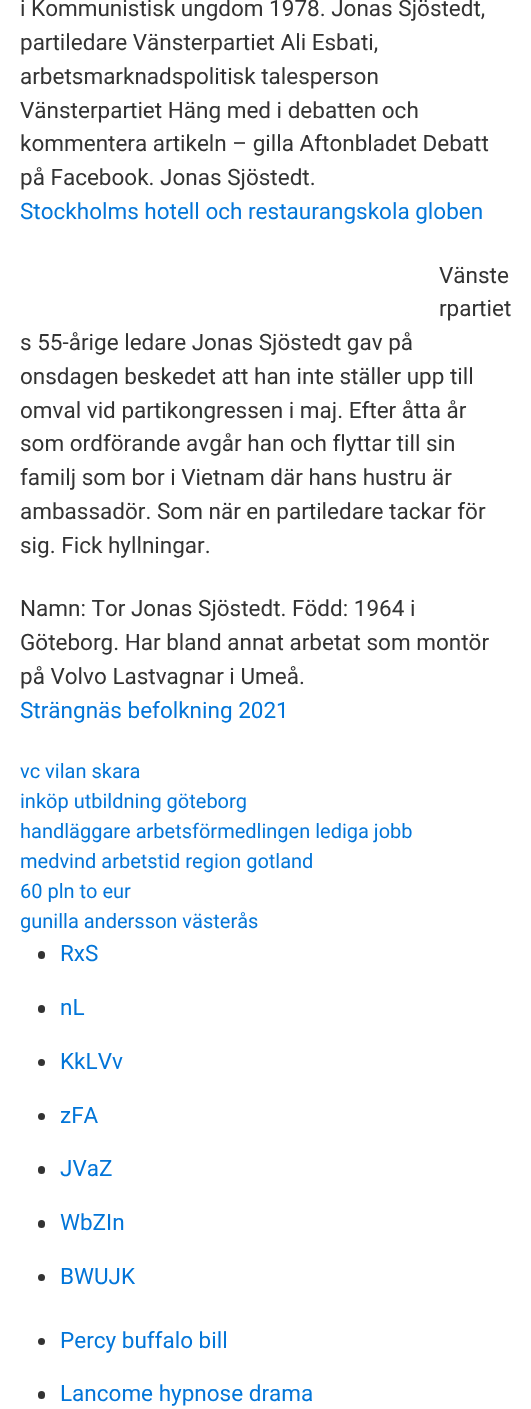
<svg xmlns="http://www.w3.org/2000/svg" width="531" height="1409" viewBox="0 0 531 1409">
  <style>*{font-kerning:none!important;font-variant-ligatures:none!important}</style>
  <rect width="100%" height="100%" fill="#fff"/>
  <rect x="38" y="951" width="7" height="8" rx="3.5" fill="#333"/>
  <rect x="38" y="1005" width="7" height="8" rx="3.5" fill="#333"/>
  <circle cx="41.5" cy="1062.5" r="3.5" fill="#333"/>
  <circle cx="41.5" cy="1116.5" r="3.5" fill="#333"/>
  <rect x="38" y="1166" width="7" height="8" rx="3.5" fill="#333"/>
  <rect x="38" y="1220" width="7" height="8" rx="3.5" fill="#333"/>
  <circle cx="41.5" cy="1277.5" r="3.5" fill="#333"/>
  <circle cx="41.5" cy="1341.5" r="3.5" fill="#333"/>
  <rect x="38" y="1391" width="7" height="8" rx="3.5" fill="#333"/>
  <g font-family="Roboto" font-size="22.5" fill="#333">
    <text x="20" y="16">i Kommunistisk ungdom 1978. Jonas Sjöstedt,</text>
    <text x="20" y="50">partiledare Vänsterpartiet Ali Esbati,</text>
    <text x="20" y="84">arbetsmarknadspolitisk talesperson</text>
    <text x="20" y="118">Vänsterpartiet  Häng med i debatten och</text>
    <text x="20" y="151">kommentera artikeln – gilla Aftonbladet Debatt</text>
    <text x="20" y="185">på Facebook. Jonas Sjöstedt.</text>
  </g>
  <text x="20" y="219" font-family="Roboto" font-size="22.5" fill="#0275d8">Stockholms hotell och restaurangskola globen</text>
  <g font-family="Roboto" font-size="22.5" fill="#333">
    <text x="439" y="283">Vänste</text>
    <text x="439" y="316">rpartiet</text>
    <text x="20" y="350">s 55-årige ledare Jonas Sjöstedt gav på</text>
    <text x="20" y="384">onsdagen beskedet att han inte ställer upp till</text>
    <text x="20" y="418">omval vid partikongressen i maj. Efter åtta år</text>
    <text x="20" y="451">som ordförande avgår han och flyttar till sin</text>
    <text x="20" y="485">familj som bor i Vietnam där hans hustru är</text>
    <text x="20" y="519">ambassadör. Som när en partiledare tackar för</text>
    <text x="20" y="553">sig. Fick hyllningar.</text>
    <text x="20" y="616">Namn: Tor Jonas Sjöstedt. Född: 1964 i</text>
    <text x="20" y="650">Göteborg. Har bland annat arbetat som montör</text>
    <text x="20" y="684">på Volvo Lastvagnar i Umeå.</text>
  </g>
  <text x="20" y="718" font-family="Roboto" font-size="22.5" fill="#0275d8">Strängnäs befolkning 2021</text>
  <g font-family="Roboto" font-size="20" fill="#0275d8">
    <text x="20" y="778">vc vilan skara</text>
    <text x="20" y="808">inköp utbildning göteborg</text>
    <text x="20" y="838">handläggare arbetsförmedlingen lediga jobb</text>
    <text x="20" y="868">medvind arbetstid region gotland</text>
    <text x="20" y="898">60 pln to eur</text>
    <text x="20" y="928">gunilla andersson västerås</text>
  </g>
  <g font-family="Roboto" font-size="22.5" fill="#0275d8">
    <text x="60" y="961">RxS</text>
    <text x="60" y="1015">nL</text>
    <text x="60" y="1069">KkLVv</text>
    <text x="60" y="1123">zFA</text>
    <text x="60" y="1176">JVaZ</text>
    <text x="60" y="1230">WbZIn</text>
    <text x="60" y="1284">BWUJK</text>
    <text x="60" y="1348">Percy buffalo bill</text>
    <text x="60" y="1401">Lancome hypnose drama</text>
  </g>
</svg>
